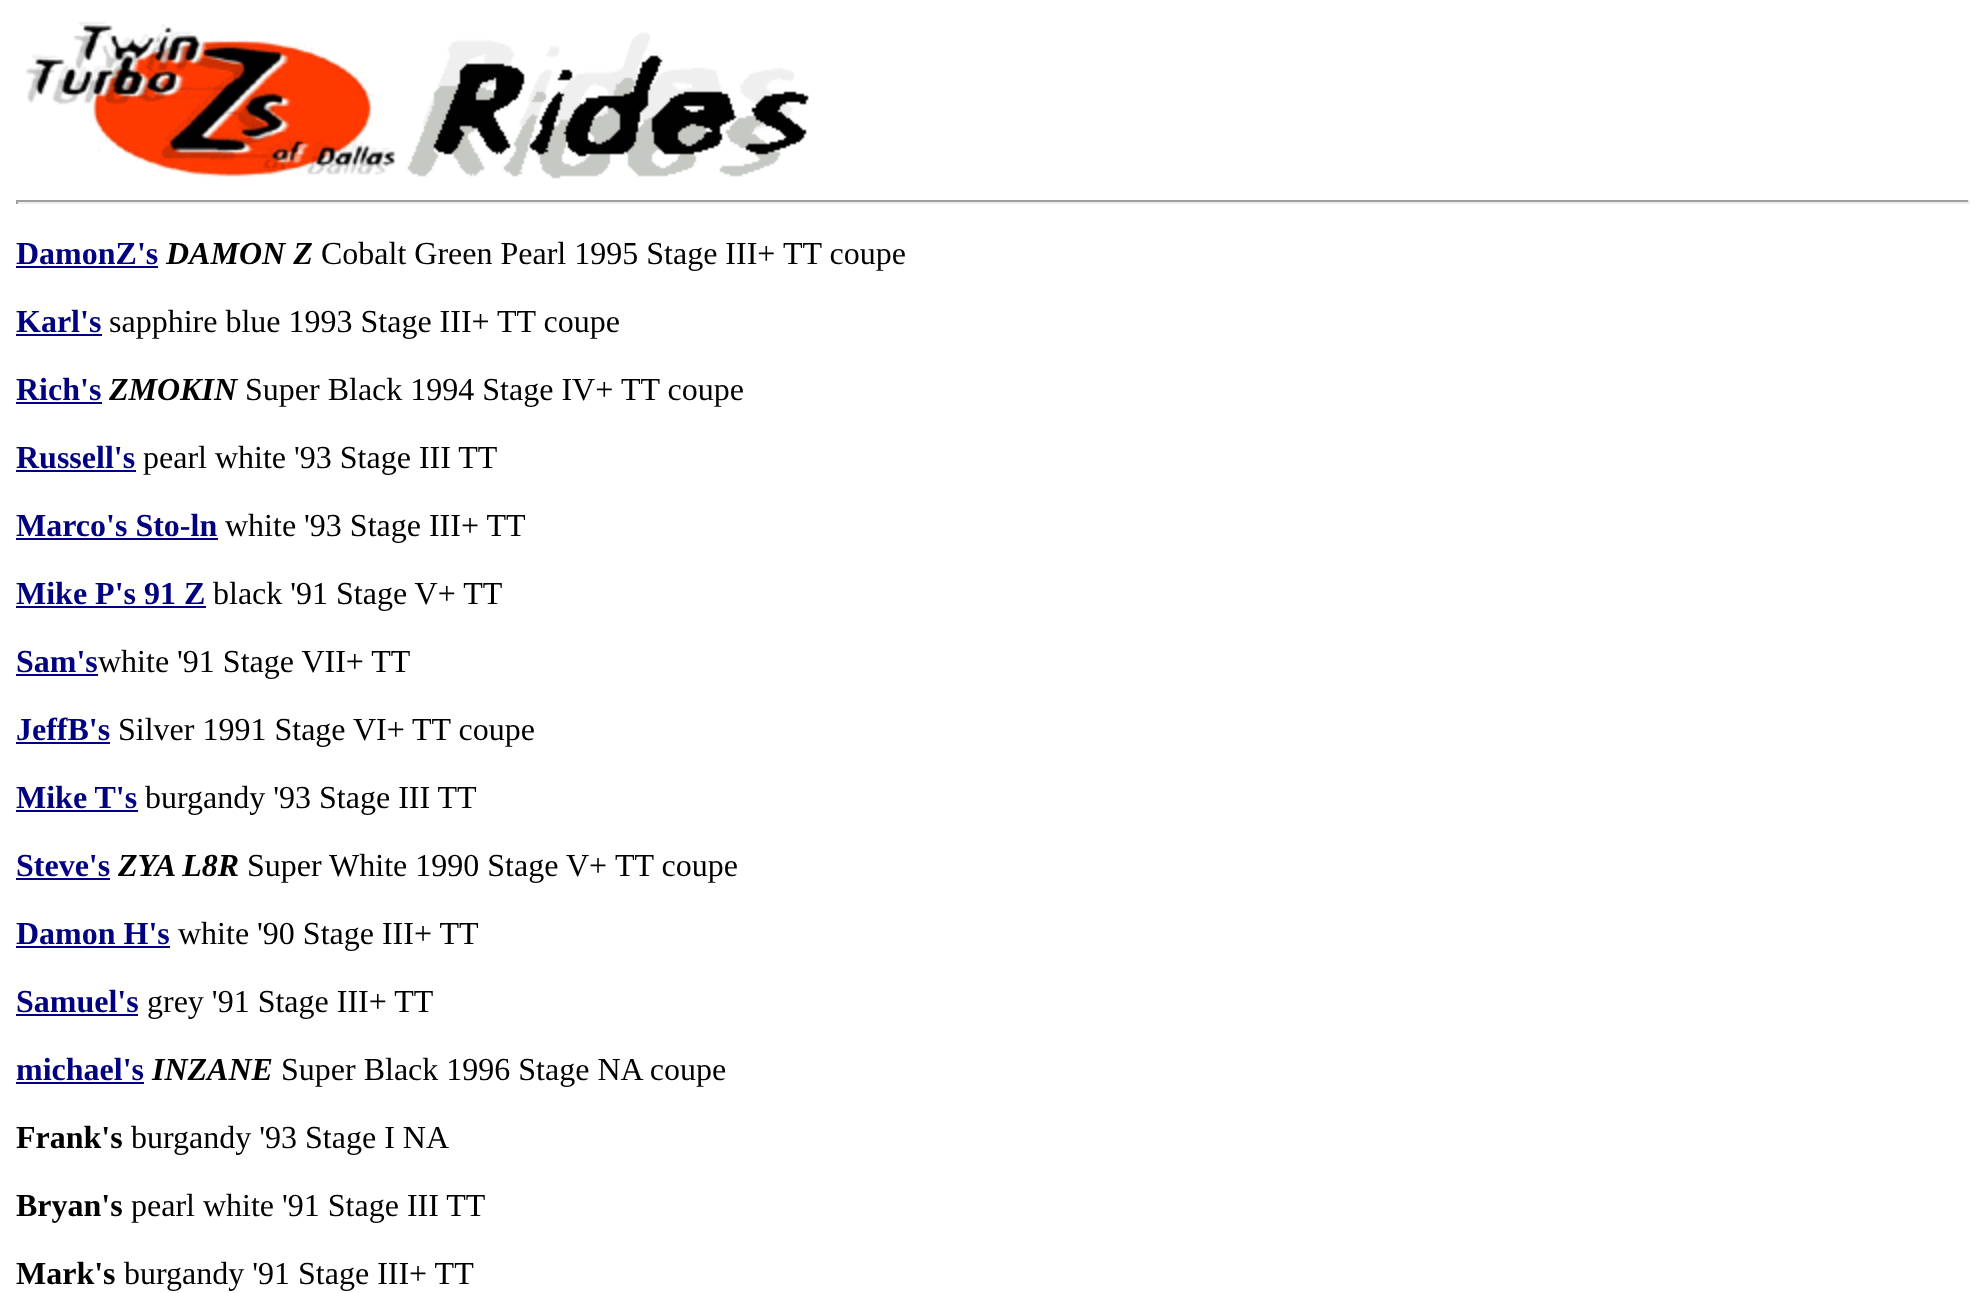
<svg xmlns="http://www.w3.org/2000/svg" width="1981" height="1293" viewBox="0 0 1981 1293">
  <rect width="100%" height="100%" fill="#fff"/>
  <image x="25" y="21" width="371" height="157" href="img/1.png"/>
  <image x="407" y="32" width="402" height="147" href="img/2.png"/>
  <path d="M16 200h1954v2H16z" fill="#9f9f9f"/>
  <path d="M1968 200h2v4H1968z" fill="#eee"/>
  <path d="M16 202h1954v2H16z" fill="#eee"/>
  <path d="M16 200h2v4H16z" fill="#9f9f9f"/>
  <path d="M16 266h142v2H16z" fill="#000080"/>
  <path d="M16 334h86v2H16z" fill="#000080"/>
  <path d="M16 402h86v2H16z" fill="#000080"/>
  <path d="M16 470h120v2H16z" fill="#000080"/>
  <path d="M16 538h202v2H16z" fill="#000080"/>
  <path d="M16 606h190v2H16z" fill="#000080"/>
  <path d="M16 674h82v2H16z" fill="#000080"/>
  <path d="M16 742h94v2H16z" fill="#000080"/>
  <path d="M16 810h122v2H16z" fill="#000080"/>
  <path d="M16 878h94v2H16z" fill="#000080"/>
  <path d="M16 946h154v2H16z" fill="#000080"/>
  <path d="M16 1014h122v2H16z" fill="#000080"/>
  <path d="M16 1082h128v2H16z" fill="#000080"/>
  <text x="16" y="264" font-family="Liberation Serif" font-size="32" font-weight="bold" fill="#000080">DamonZ's</text>
  <text x="166" y="264" font-family="Liberation Serif" font-size="32" font-weight="bold" font-style="italic" fill="#000">DAMON Z</text>
  <g font-family="Liberation Serif" font-size="32" fill="#000">
    <text x="321" y="264">Cobalt Green Pearl 1995 Stage III+</text>
    <text x="783" y="264">TT coupe</text>
  </g>
  <text x="16" y="332" font-family="Liberation Serif" font-size="32" font-weight="bold" fill="#000080">Karl's</text>
  <g font-family="Liberation Serif" font-size="32" fill="#000">
    <text x="109" y="332">sapphire blue 1993 Stage III+</text>
    <text x="497" y="332">TT coupe</text>
  </g>
  <text x="16" y="400" font-family="Liberation Serif" font-size="32" font-weight="bold" fill="#000080">Rich's</text>
  <text x="109" y="400" font-family="Liberation Serif" font-size="32" font-weight="bold" font-style="italic" fill="#000">ZMOKIN</text>
  <g font-family="Liberation Serif" font-size="32" fill="#000">
    <text x="245" y="400">Super Black 1994 Stage IV+</text>
    <text x="621" y="400">TT coupe</text>
  </g>
  <text x="16" y="468" font-family="Liberation Serif" font-size="32" font-weight="bold" fill="#000080">Russell's</text>
  <text x="143" y="468" font-family="Liberation Serif" font-size="32" fill="#000">pearl white '93 Stage III TT</text>
  <text x="16" y="536" font-family="Liberation Serif" font-size="32" font-weight="bold" fill="#000080">Marco's Sto-ln</text>
  <text x="225" y="536" font-family="Liberation Serif" font-size="32" fill="#000">white '93 Stage III+ TT</text>
  <text x="16" y="604" font-family="Liberation Serif" font-size="32" font-weight="bold" fill="#000080">Mike P's 91 Z</text>
  <text x="213" y="604" font-family="Liberation Serif" font-size="32" fill="#000">black '91 Stage V+ TT</text>
  <text x="16" y="672" font-family="Liberation Serif" font-size="32" font-weight="bold" fill="#000080">Sam's</text>
  <text x="98" y="672" font-family="Liberation Serif" font-size="32" fill="#000">white '91 Stage VII+ TT</text>
  <text x="16" y="740" font-family="Liberation Serif" font-size="32" font-weight="bold" fill="#000080">JeffB's</text>
  <g font-family="Liberation Serif" font-size="32" fill="#000">
    <text x="118" y="740">Silver 1991 Stage</text>
    <text x="353" y="740">VI+</text>
    <text x="412" y="740">TT coupe</text>
  </g>
  <text x="16" y="808" font-family="Liberation Serif" font-size="32" font-weight="bold" fill="#000080">Mike T's</text>
  <text x="145" y="808" font-family="Liberation Serif" font-size="32" fill="#000">burgandy '93 Stage III TT</text>
  <text x="16" y="876" font-family="Liberation Serif" font-size="32" font-weight="bold" fill="#000080">Steve's</text>
  <text x="118" y="876" font-family="Liberation Serif" font-size="32" font-weight="bold" font-style="italic" fill="#000">ZYA L8R</text>
  <g font-family="Liberation Serif" font-size="32" fill="#000">
    <text x="247" y="876">Super White 1990 Stage</text>
    <text x="566" y="876">V+</text>
    <text x="615" y="876">TT coupe</text>
  </g>
  <text x="16" y="944" font-family="Liberation Serif" font-size="32" font-weight="bold" fill="#000080">Damon H's</text>
  <text x="178" y="944" font-family="Liberation Serif" font-size="32" fill="#000">white '90 Stage III+ TT</text>
  <text x="16" y="1012" font-family="Liberation Serif" font-size="32" font-weight="bold" fill="#000080">Samuel's</text>
  <text x="147" y="1012" font-family="Liberation Serif" font-size="32" fill="#000">grey '91 Stage III+ TT</text>
  <text x="16" y="1080" font-family="Liberation Serif" font-size="32" font-weight="bold" fill="#000080">michael's</text>
  <text x="152" y="1080" font-family="Liberation Serif" font-size="32" font-weight="bold" font-style="italic" fill="#000">INZANE</text>
  <text x="281" y="1080" font-family="Liberation Serif" font-size="32" fill="#000">Super Black 1996 Stage NA coupe</text>
  <text x="16" y="1148" font-family="Liberation Serif" font-size="32" font-weight="bold" fill="#000">Frank's</text>
  <text x="131" y="1148" font-family="Liberation Serif" font-size="32" fill="#000">burgandy '93 Stage I NA</text>
  <text x="16" y="1216" font-family="Liberation Serif" font-size="32" font-weight="bold" fill="#000">Bryan's</text>
  <text x="131" y="1216" font-family="Liberation Serif" font-size="32" fill="#000">pearl white '91 Stage III TT</text>
  <text x="16" y="1284" font-family="Liberation Serif" font-size="32" font-weight="bold" fill="#000">Mark's</text>
  <text x="124" y="1284" font-family="Liberation Serif" font-size="32" fill="#000">burgandy '91 Stage III+ TT</text>
</svg>
